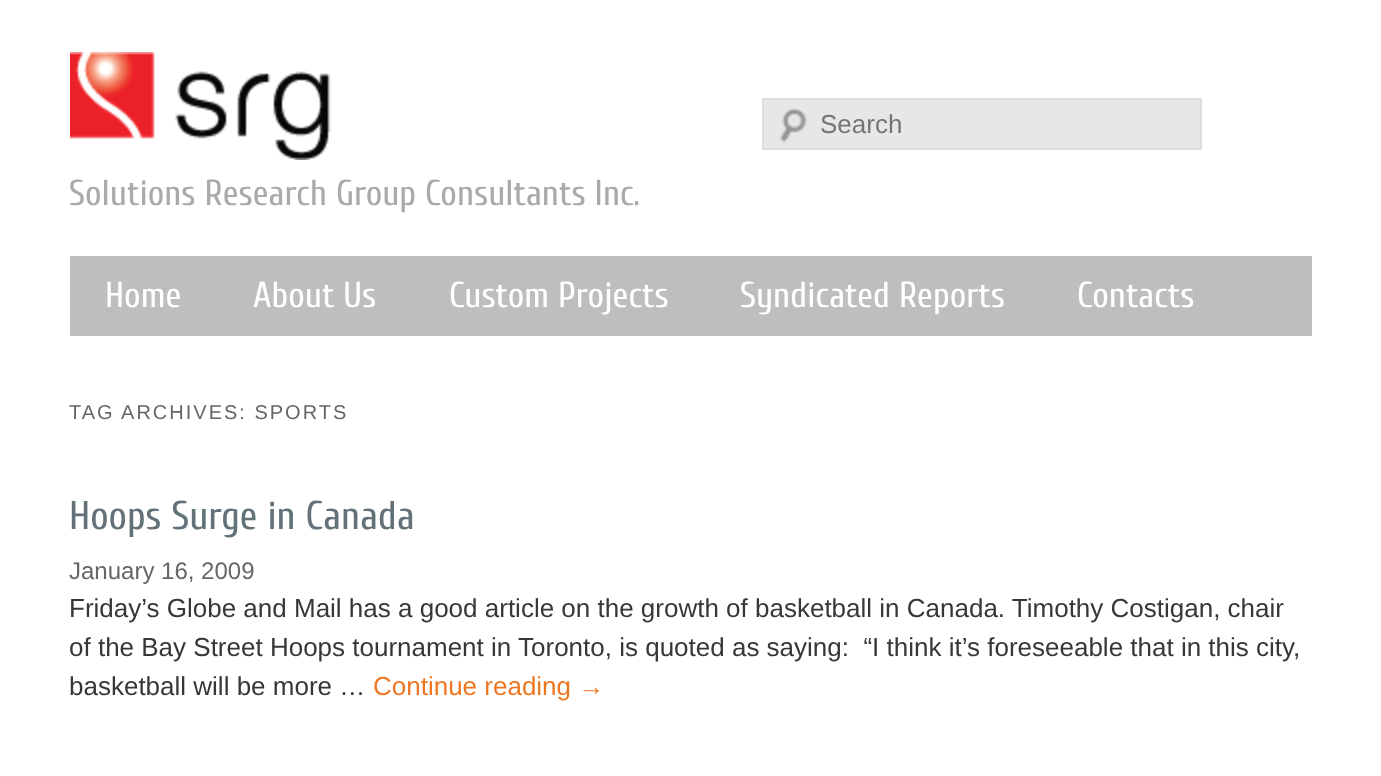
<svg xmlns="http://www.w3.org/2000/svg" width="1381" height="776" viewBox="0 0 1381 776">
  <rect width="100%" height="100%" fill="#fff"/>
  <path d="M764 100h436v48H764z" fill="#e7e7e7"/>
  <image x="779" y="108" width="28" height="35" href="img/1.png"/>
  <path d="M763 99h438v50H763z" fill="none" stroke="#ddd" stroke-width="2"/>
  <image x="70" y="52" width="261" height="108" href="img/2.png"/>
  <path d="M70 256h1242v80H70z" fill="#bcbec0"/>
  <text x="820" y="133" font-family="Liberation Sans" font-size="26" fill="#757575">Search</text>
  <text x="69" y="205" font-family="Cuprum" font-size="36" fill="#aaa">Solutions Research Group Consultants Inc.</text>
  <g font-family="Cuprum" font-size="36" fill="#fff">
    <text x="105" y="307">Home</text>
    <text x="253" y="307">About Us</text>
    <text x="449" y="307">Custom Projects</text>
    <text x="740" y="307">Syndicated Reports</text>
    <text x="1077" y="307">Contacts</text>
  </g>
  <text x="69" y="419" font-family="Liberation Sans" font-size="20" letter-spacing="2" fill="#666">TAG ARCHIVES: SPORTS</text>
  <text x="69" y="529" font-family="Cuprum" font-size="40" fill="#637279">Hoops Surge in Canada</text>
  <text x="69" y="579" font-family="Liberation Sans" font-size="24" fill="#666">January 16, 2009</text>
  <g font-family="Liberation Sans" font-size="26" fill="#373737">
    <text x="69" y="617">Friday’s Globe and Mail has a good article on the growth of basketball in Canada. Timothy Costigan, chair</text>
    <text x="69" y="656" xml:space="preserve">of the Bay Street Hoops tournament in Toronto, is quoted as saying:  “I think it’s foreseeable that in this city,</text>
    <text x="69" y="695">basketball will be more …</text>
  </g>
  <text x="373" y="695" font-family="Liberation Sans" font-size="26" fill="#ef7722">Continue reading →</text>
</svg>
